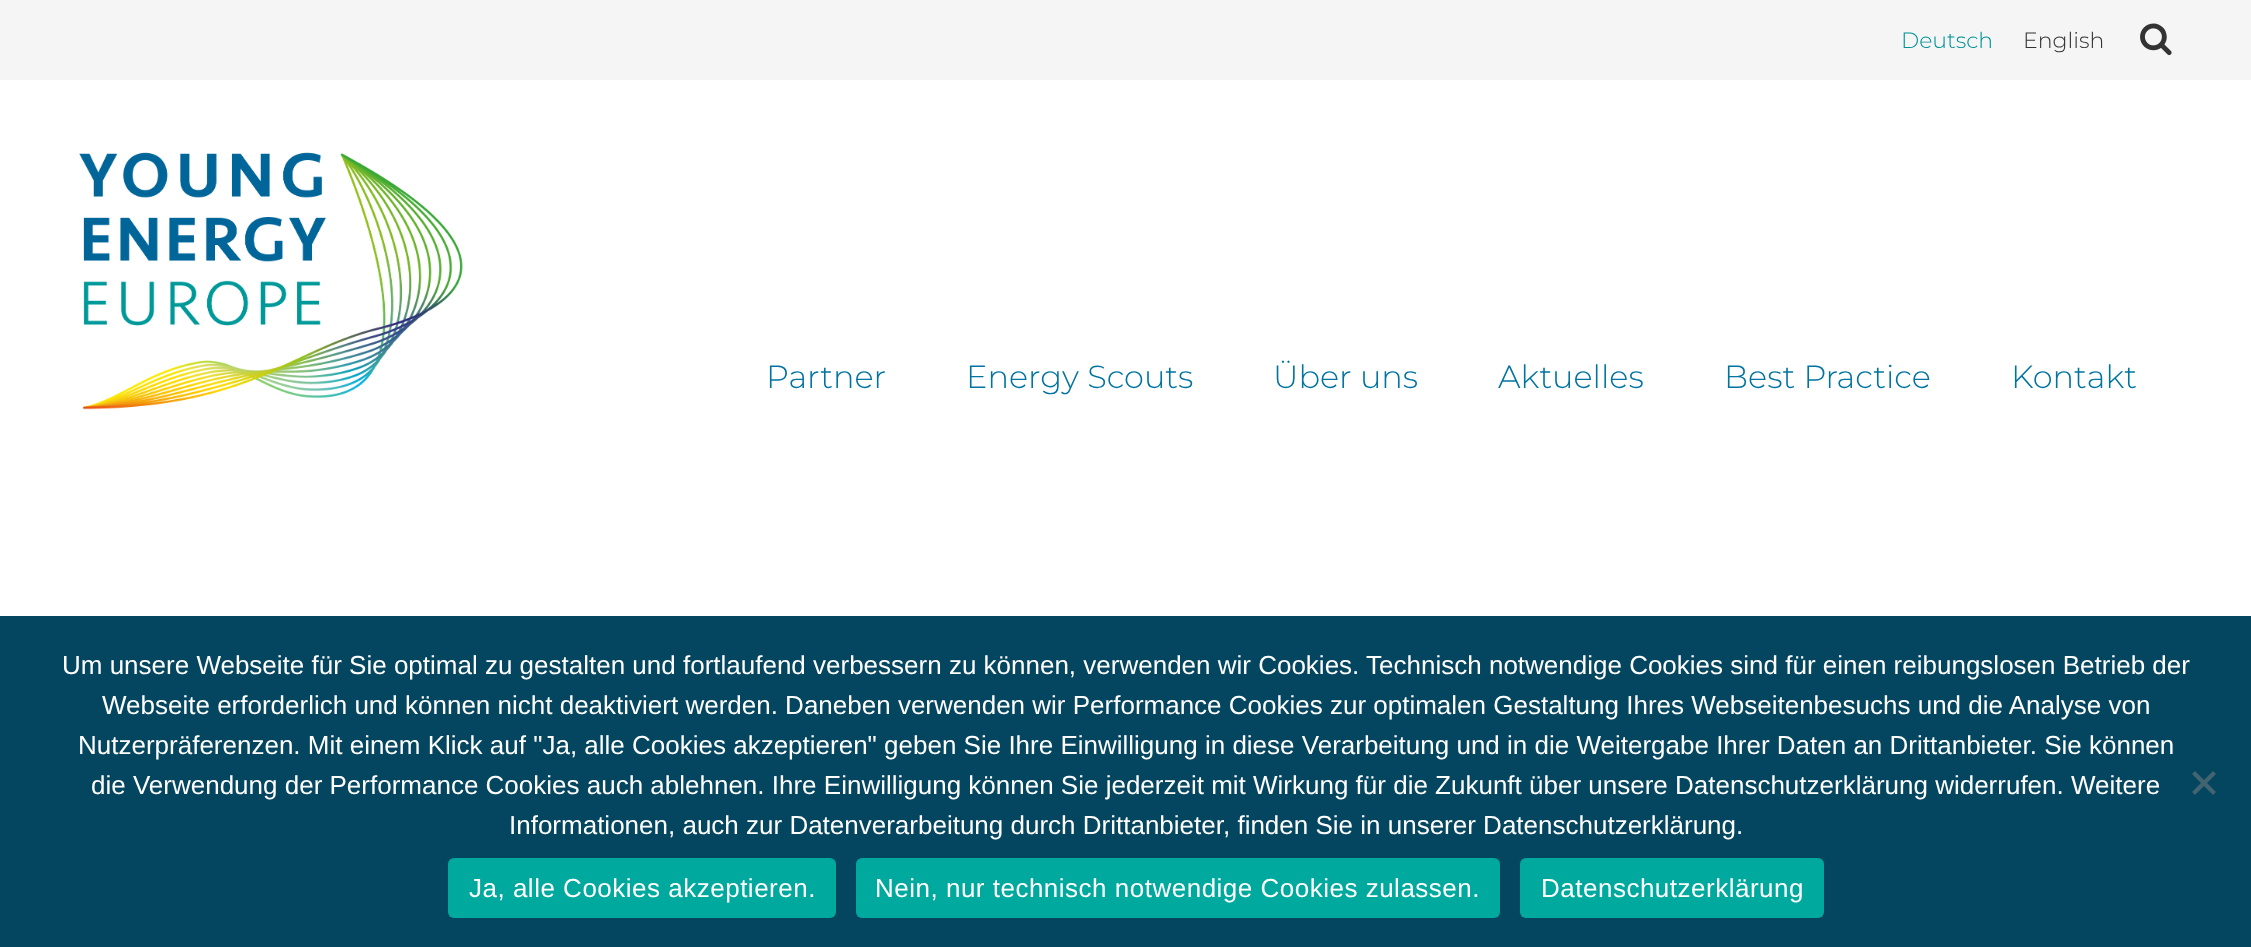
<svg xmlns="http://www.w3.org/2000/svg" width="2251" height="947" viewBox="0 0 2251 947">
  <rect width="100%" height="100%" fill="#fff"/>
  <path d="M0 0h2251v80H0z" fill="#f5f5f5"/>
  <image x="2140" y="23" width="32" height="33" href="img/1.png"/>
  <image x="79" y="152" width="384" height="258" href="img/2.png"/>
  <path d="M0 616h2251v331H0z" fill="#04455f"/>
  <path d="M2213 771L2216 774L2195 795L2192 792Z" fill="#426370"/>
  <path d="M2192 774L2195 771L2216 792L2213 795Z" fill="#426370"/>
  <rect x="448" y="858" width="388" height="60" rx="6" fill="#00a99d"/>
  <rect x="856" y="858" width="644" height="60" rx="6" fill="#00a99d"/>
  <rect x="1520" y="858" width="304" height="60" rx="6" fill="#00a99d"/>
  <text x="1901" y="48" font-family="Montserrat" font-size="22" font-weight="100" fill="#009296">Deutsch</text>
  <text x="2023" y="48" font-family="Montserrat" font-size="22" font-weight="100" fill="#333">English</text>
  <g font-family="Montserrat" font-size="32" font-weight="100" fill="#0074a1">
    <text x="766" y="388">Partner</text>
    <text x="966" y="388">Energy Scouts</text>
    <text x="1273" y="388">Über uns</text>
    <text x="1498" y="388">Aktuelles</text>
    <text x="1724" y="388">Best Practice</text>
    <text x="2011" y="388">Kontakt</text>
  </g>
  <g font-family="Liberation Sans" font-size="26" fill="#fff">
    <text x="62" y="674">Um unsere Webseite für Sie optimal zu gestalten und fortlaufend verbessern zu können, verwenden wir Cookies. Technisch notwendige Cookies sind für einen reibungslosen Betrieb der</text>
    <text x="102" y="714">Webseite erforderlich und können nicht deaktiviert werden. Daneben verwenden wir Performance Cookies zur optimalen Gestaltung Ihres Webseitenbesuchs und die Analyse von</text>
    <text x="78" y="754">Nutzerpräferenzen. Mit einem Klick auf "Ja, alle Cookies akzeptieren" geben Sie Ihre Einwilligung in diese Verarbeitung und in die Weitergabe Ihrer Daten an Drittanbieter. Sie können</text>
    <text x="91" y="794">die Verwendung der Performance Cookies auch ablehnen. Ihre Einwilligung können Sie jederzeit mit Wirkung für die Zukunft über unsere Datenschutzerklärung widerrufen. Weitere</text>
    <text x="509" y="834">Informationen, auch zur Datenverarbeitung durch Drittanbieter, finden Sie in unserer Datenschutzerklärung.</text>
  </g>
  <g font-family="Liberation Sans" font-size="26" letter-spacing="0.5" fill="#fff">
    <text x="469" y="897">Ja, alle Cookies akzeptieren.</text>
    <text x="875" y="897">Nein, nur technisch notwendige Cookies zulassen.</text>
    <text x="1541" y="897">Datenschutzerklärung</text>
  </g>
</svg>
